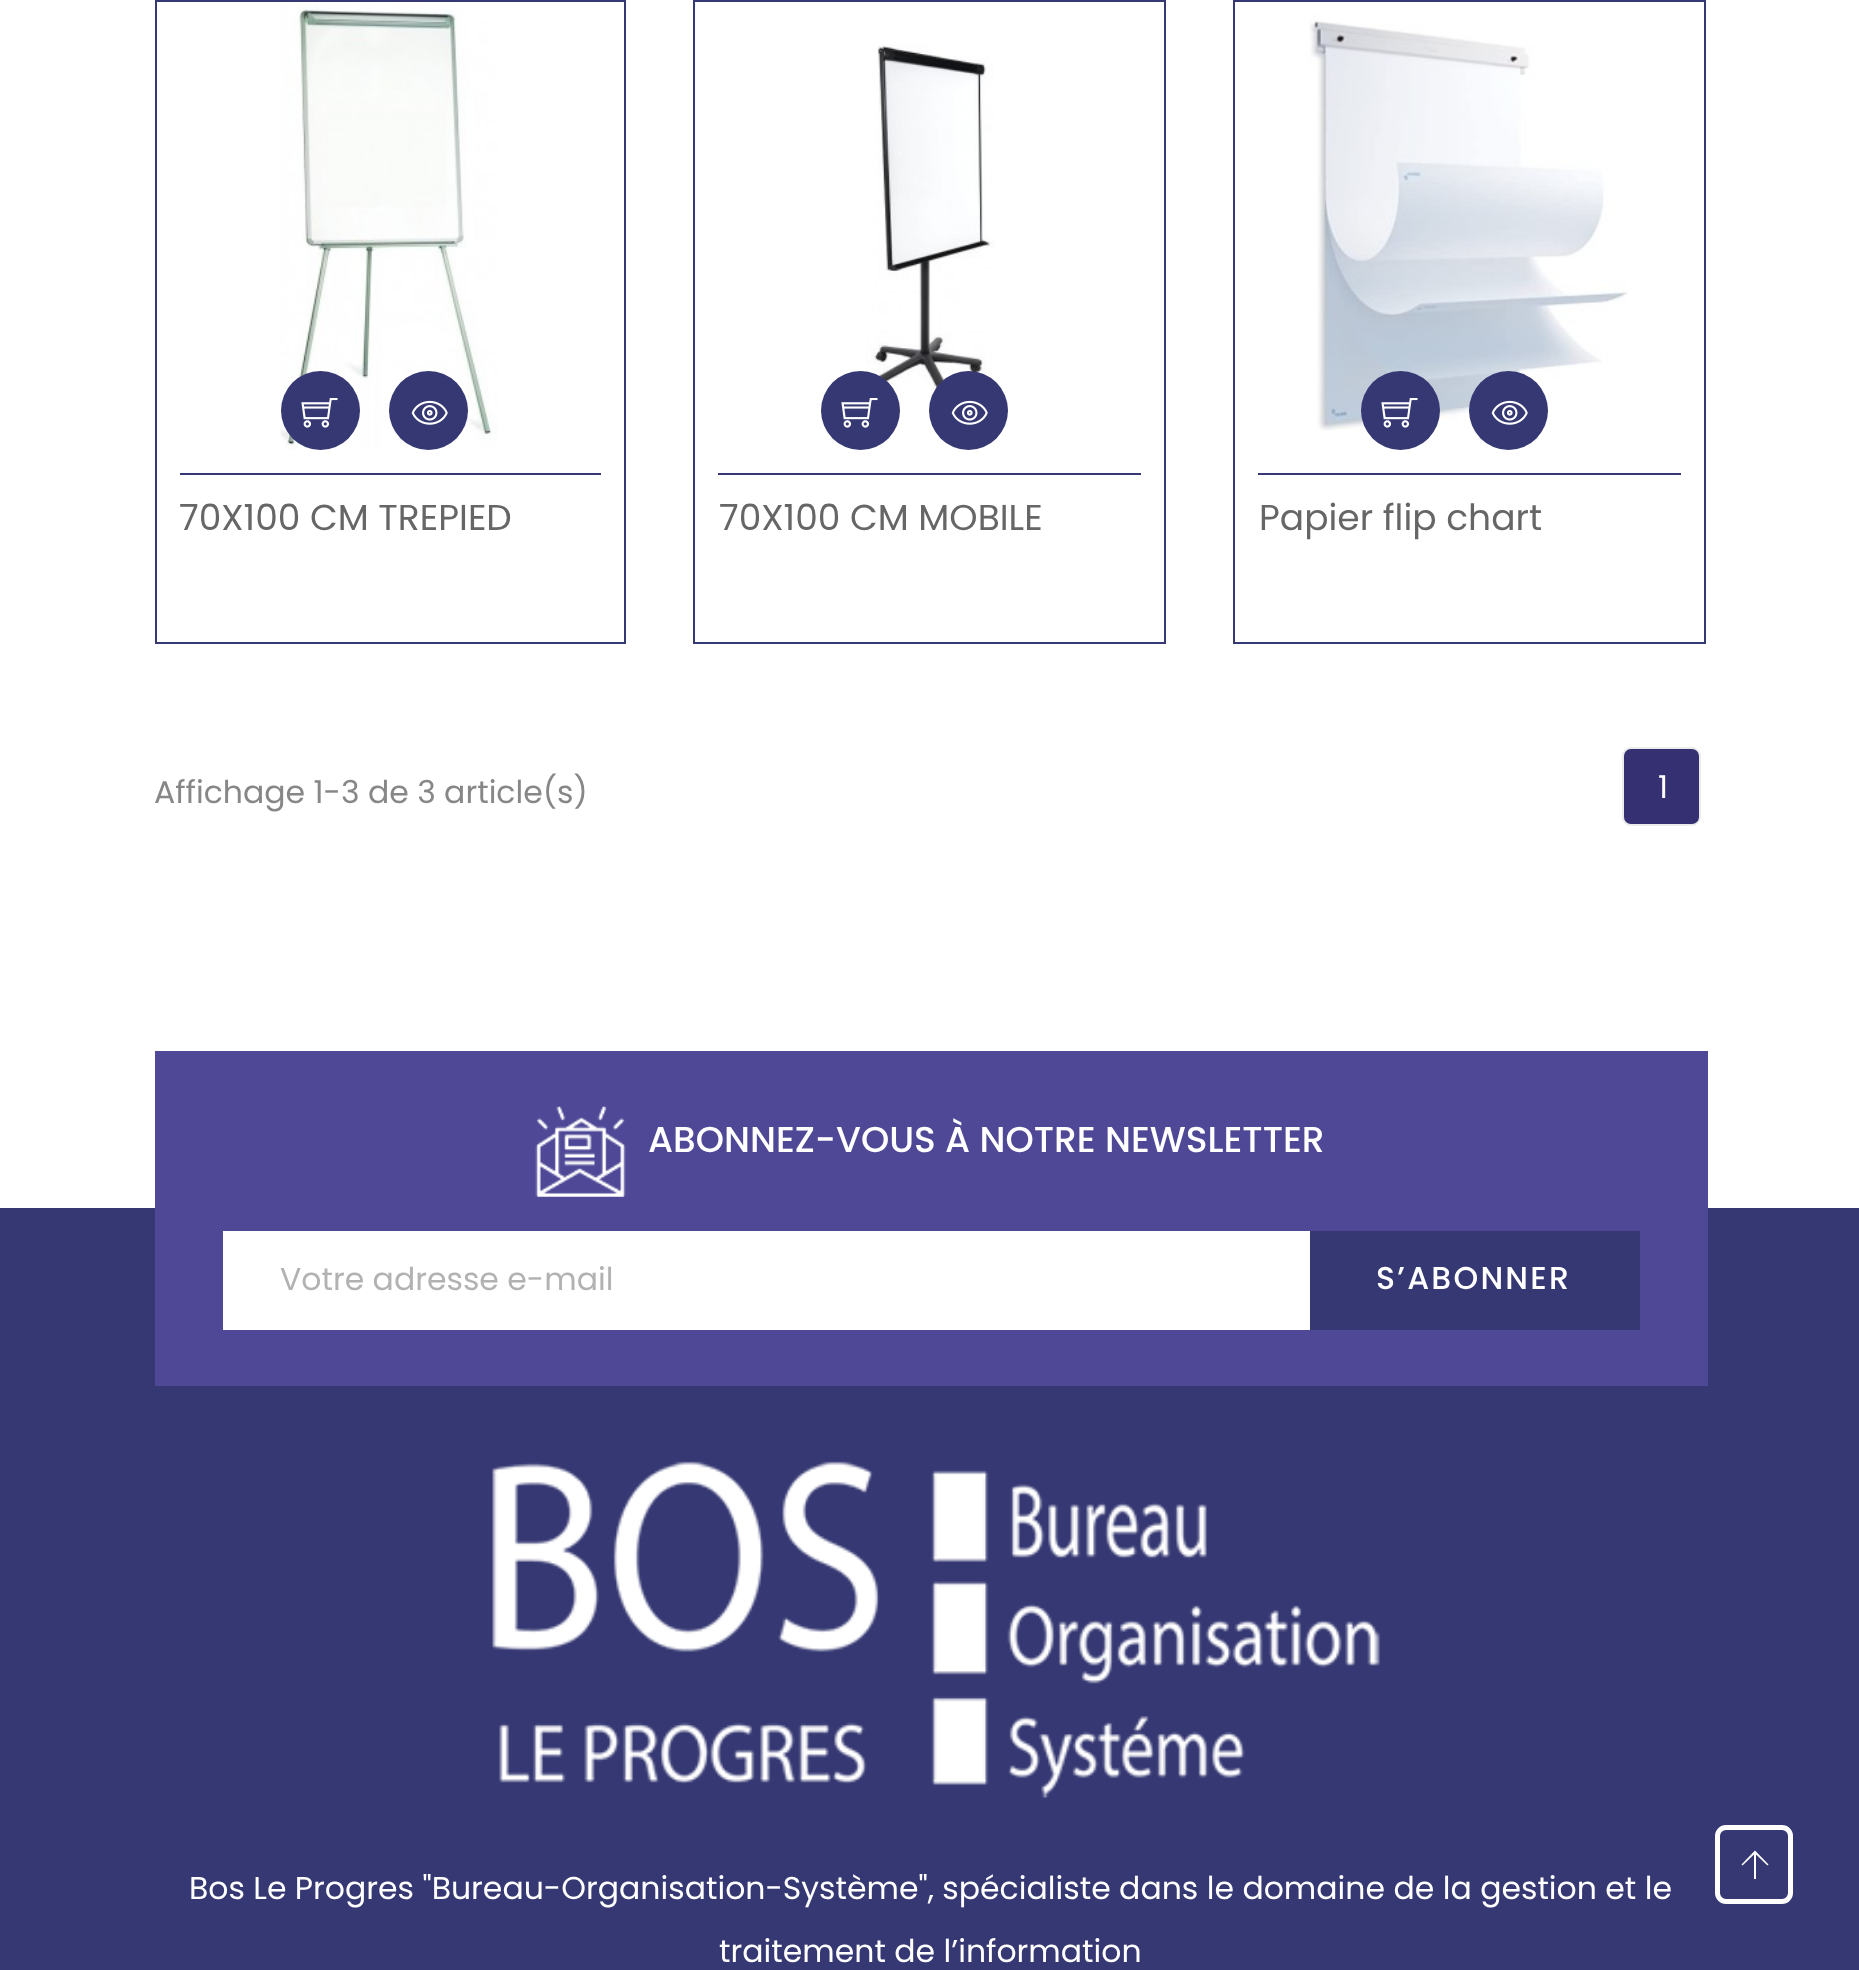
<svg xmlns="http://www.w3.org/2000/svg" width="1859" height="1970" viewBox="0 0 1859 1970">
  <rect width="100%" height="100%" fill="#fff"/>
  <path d="M156 1h469v642H156z" fill="none" stroke="#353872" stroke-width="2"/>
  <image x="280" y="5" width="218" height="445" href="img/1.png"/>
  <circle cx="320.5" cy="410.5" r="39.5" fill="#353872"/>
  <image x="301" y="398" width="37" height="30" href="img/2.png"/>
  <circle cx="428.5" cy="410.5" r="39.5" fill="#353872"/>
  <image x="411" y="400" width="37" height="25" href="img/3.png"/>
  <path d="M180 473h421v2H180z" fill="#353872"/>
  <path d="M694 1h471v642H694z" fill="none" stroke="#353872" stroke-width="2"/>
  <image x="866" y="45" width="128" height="363" href="img/4.png"/>
  <circle cx="860.5" cy="410.5" r="39.5" fill="#353872"/>
  <image x="841" y="398" width="37" height="30" href="img/2.png"/>
  <circle cx="968.5" cy="410.5" r="39.5" fill="#353872"/>
  <image x="951" y="400" width="37" height="25" href="img/3.png"/>
  <path d="M718 473h423v2H718z" fill="#353872"/>
  <path d="M1234 1h471v642H1234z" fill="none" stroke="#353872" stroke-width="2"/>
  <image x="1309" y="14" width="319" height="417" href="img/5.png"/>
  <circle cx="1400.5" cy="410.5" r="39.5" fill="#353872"/>
  <image x="1381" y="398" width="37" height="30" href="img/2.png"/>
  <circle cx="1508.5" cy="410.5" r="39.5" fill="#353872"/>
  <image x="1491" y="400" width="37" height="25" href="img/3.png"/>
  <path d="M1258 473h423v2H1258z" fill="#353872"/>
  <rect x="1623" y="748" width="77" height="77" rx="8" fill="#353072" stroke="#ebebeb" stroke-width="2"/>
  <path d="M0 1208h1859v762H0z" fill="#353872"/>
  <path d="M155 1051h1553v335H155z" fill="#4e4896"/>
  <image x="535" y="1106" width="91" height="91" href="img/6.png"/>
  <path d="M223 1231h1087v99H223z" fill="#fff"/>
  <path d="M1310 1231h330v99H1310z" fill="#353872"/>
  <image x="492" y="1461" width="888" height="338" href="img/7.png"/>
  <rect x="1717.5" y="1827.5" width="73" height="74" rx="8.5" fill="none" stroke="#fff" stroke-width="5"/>
  <path d="M1767.5 1865.5L1756 1854.5V1879H1754V1854.5L1742.5 1865.5L1741.5 1864.5L1755 1850.5L1768.5 1864.5Z" fill="#fff"/>
  <g font-family="Poppins" font-size="36" fill="#666">
    <text x="179" y="530">70X100 CM TREPIED</text>
    <text x="719" y="530">70X100 CM MOBILE</text>
    <text x="1259" y="530">Papier flip chart</text>
  </g>
  <text x="154" y="803" font-family="Poppins" font-size="31.5" fill="#878787">Affichage 1-3 de 3 article(s)</text>
  <text x="1658" y="798" font-family="Poppins" font-size="31.5" fill="#fff">1</text>
  <text x="648" y="1152" font-family="Poppins" font-size="36" font-weight="500" fill="#fff">ABONNEZ-VOUS À NOTRE NEWSLETTER</text>
  <text x="280" y="1290" font-family="Poppins" font-size="31.5" fill="#b2b2b2">Votre adresse e-mail</text>
  <text x="1376" y="1289" font-family="Poppins" font-size="31.5" font-weight="500" letter-spacing="2.25" fill="#fff">S’ABONNER</text>
  <g font-family="Poppins" font-size="31.5" fill="#fff">
    <text x="189" y="1899">Bos Le Progres "Bureau-Organisation-Système", spécialiste dans le domaine de la gestion et le</text>
    <text x="719" y="1962">traitement de l’information</text>
  </g>
</svg>
